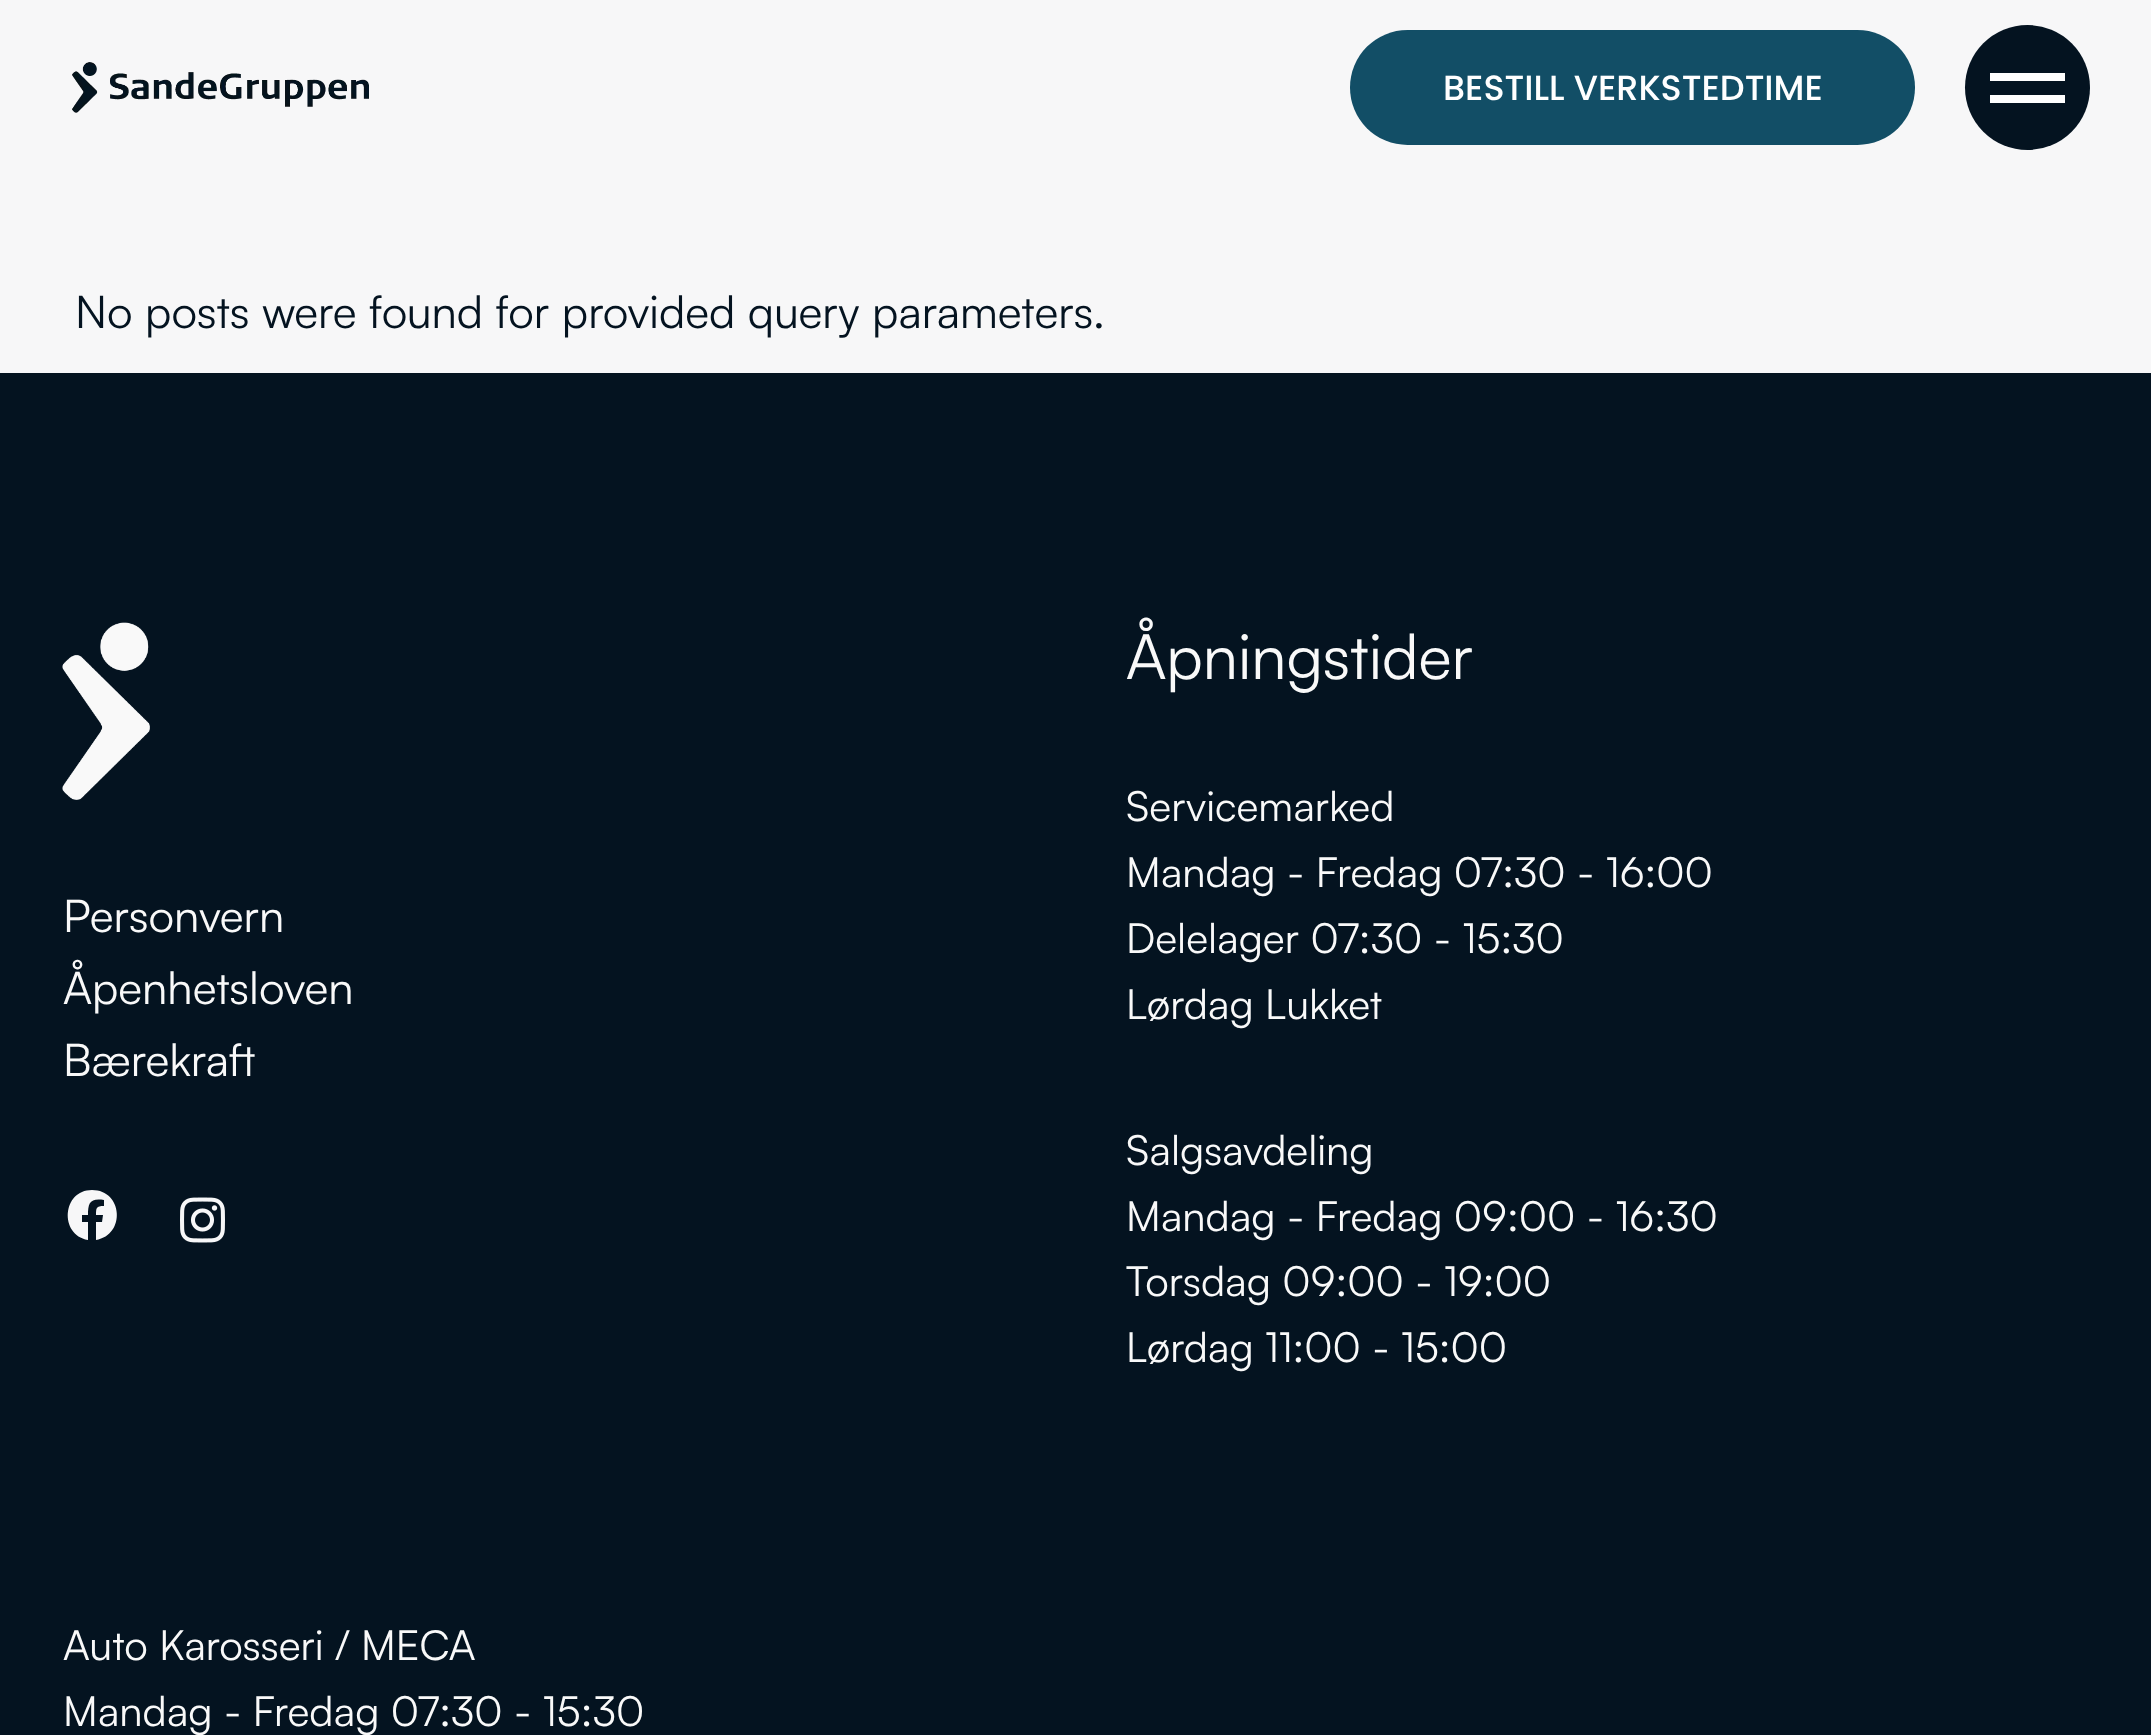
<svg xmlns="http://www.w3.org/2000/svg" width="2151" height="1735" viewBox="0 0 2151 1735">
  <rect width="100%" height="100%" fill="#f7f7f8"/>
  <image x="72" y="62" width="297" height="51" href="img/1.png"/>
  <rect x="1350" y="30" width="565" height="115" rx="57.5" fill="#124e66"/>
  <circle cx="2027.5" cy="87.5" r="62.5" fill="#041320"/>
  <path d="M1990 73h75v8H1990z" fill="#fff"/>
  <path d="M1990 95h75v8H1990z" fill="#fff"/>
  <path d="M0 373h2151v1362H0z" fill="#041320"/>
  <image x="62" y="622" width="88" height="178" href="img/2.png"/>
  <path d="M92 1190C62 1190 59 1235 88 1240V1222H82V1215H88C88 1203 90 1198 104 1200V1206C96 1206 96 1208 96 1215H103L102 1222H96V1240C126 1235 123 1190 92 1190Z" fill="#f7f7f8"/>
  <image x="180" y="1197" width="45" height="46" href="img/3.png"/>
  <text x="1443" y="100" font-family="Poppins" font-size="35" font-weight="500" fill="#fff">BESTILL VERKSTEDTIME</text>
  <text x="75" y="328" font-family="Satoshi" font-size="45" fill="#041320">No posts were found for provided query parameters.</text>
  <g font-family="Satoshi" font-size="45" fill="#f9f9f9">
    <text x="63" y="932">Personvern</text>
    <text x="63" y="1004">Åpenhetsloven</text>
    <text x="63" y="1076">Bærekraft</text>
  </g>
  <text x="1126" y="679" font-family="Satoshi" font-size="62.5" fill="#f9f9f9">Åpningstider</text>
  <g font-family="Satoshi" font-size="41.4" fill="#f9f9f9">
    <text x="1126" y="821">Servicemarked</text>
    <text x="1126" y="887">Mandag - Fredag 07:30 - 16:00</text>
    <text x="1126" y="953">Delelager 07:30 - 15:30</text>
    <text x="1126" y="1019">Lørdag Lukket</text>
    <text x="1126" y="1165">Salgsavdeling</text>
    <text x="1126" y="1231">Mandag - Fredag 09:00 - 16:30</text>
    <text x="1126" y="1296">Torsdag 09:00 - 19:00</text>
    <text x="1126" y="1362">Lørdag 11:00 - 15:00</text>
    <text x="63" y="1660">Auto Karosseri / MECA</text>
    <text x="63" y="1726">Mandag - Fredag 07:30 - 15:30</text>
  </g>
</svg>
